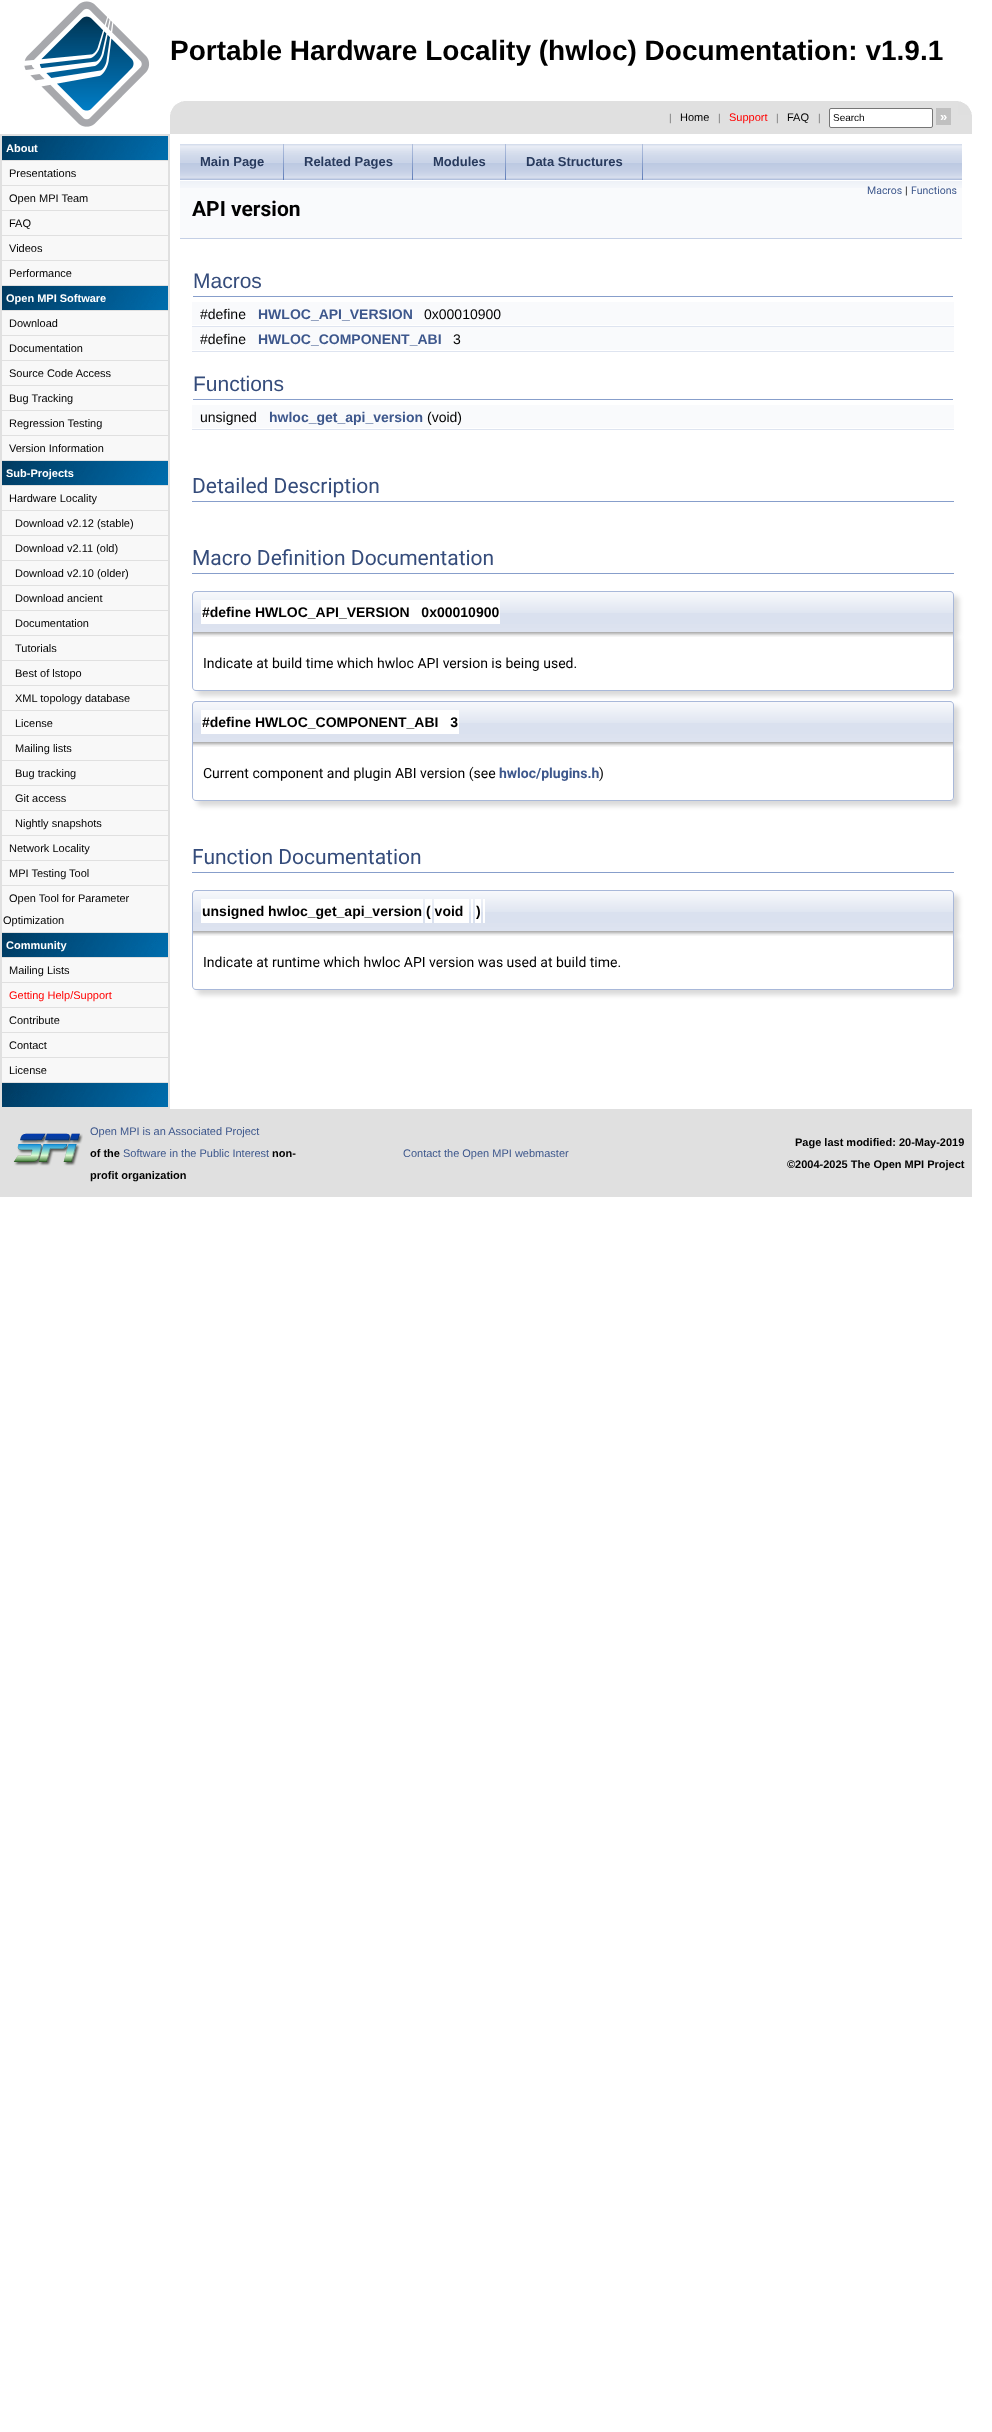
<svg xmlns="http://www.w3.org/2000/svg" width="992" height="2432" viewBox="0 0 992 2432">
  <rect width="100%" height="100%" fill="#fff"/>
  <image x="24" y="1" width="126" height="126" href="img/1.png"/>
  <path d="M170 101h802v33H170z" fill="#e0e0e0"/>
  <image x="170" y="101" width="14" height="14" href="img/2.png"/>
  <image x="958" y="101" width="14" height="14" href="img/3.png"/>
  <rect x="829.5" y="108.5" width="103" height="19" rx="1.5" fill="#fff" stroke="#767676"/>
  <path d="M936 108h15v17H936z" fill="#c0c0c0"/>
  <path d="M0 134h170v975H0z" fill="#e0e0e0"/>
  <image x="2" y="136" width="166" height="24" href="img/4.png"/>
  <path d="M2 161h166v24H2z" fill="#f8f8f8"/>
  <path d="M2 186h166v24H2z" fill="#f8f8f8"/>
  <path d="M2 211h166v24H2z" fill="#f8f8f8"/>
  <path d="M2 236h166v24H2z" fill="#f8f8f8"/>
  <path d="M2 261h166v24H2z" fill="#f8f8f8"/>
  <image x="2" y="286" width="166" height="24" href="img/4.png"/>
  <path d="M2 311h166v24H2z" fill="#f8f8f8"/>
  <path d="M2 336h166v24H2z" fill="#f8f8f8"/>
  <path d="M2 361h166v24H2z" fill="#f8f8f8"/>
  <path d="M2 386h166v24H2z" fill="#f8f8f8"/>
  <path d="M2 411h166v24H2z" fill="#f8f8f8"/>
  <path d="M2 436h166v24H2z" fill="#f8f8f8"/>
  <image x="2" y="461" width="166" height="24" href="img/4.png"/>
  <path d="M2 486h166v24H2z" fill="#f8f8f8"/>
  <path d="M2 511h166v24H2z" fill="#f8f8f8"/>
  <path d="M2 536h166v24H2z" fill="#f8f8f8"/>
  <path d="M2 561h166v24H2z" fill="#f8f8f8"/>
  <path d="M2 586h166v24H2z" fill="#f8f8f8"/>
  <path d="M2 611h166v24H2z" fill="#f8f8f8"/>
  <path d="M2 636h166v24H2z" fill="#f8f8f8"/>
  <path d="M2 661h166v24H2z" fill="#f8f8f8"/>
  <path d="M2 686h166v24H2z" fill="#f8f8f8"/>
  <path d="M2 711h166v24H2z" fill="#f8f8f8"/>
  <path d="M2 736h166v24H2z" fill="#f8f8f8"/>
  <path d="M2 761h166v24H2z" fill="#f8f8f8"/>
  <path d="M2 786h166v24H2z" fill="#f8f8f8"/>
  <path d="M2 811h166v24H2z" fill="#f8f8f8"/>
  <path d="M2 836h166v24H2z" fill="#f8f8f8"/>
  <path d="M2 861h166v24H2z" fill="#f8f8f8"/>
  <path d="M2 886h166v46H2z" fill="#f8f8f8"/>
  <image x="2" y="933" width="166" height="24" href="img/4.png"/>
  <path d="M2 958h166v24H2z" fill="#f8f8f8"/>
  <path d="M2 983h166v24H2z" fill="#f8f8f8"/>
  <path d="M2 1008h166v24H2z" fill="#f8f8f8"/>
  <path d="M2 1033h166v24H2z" fill="#f8f8f8"/>
  <path d="M2 1058h166v24H2z" fill="#f8f8f8"/>
  <image x="2" y="1083" width="166" height="24" href="img/4.png"/>
  <image x="180" y="144" width="782" height="36" href="img/5.png"/>
  <image x="283" y="144" width="1" height="36" href="img/6.png"/>
  <image x="412" y="144" width="1" height="36" href="img/6.png"/>
  <image x="505" y="144" width="1" height="36" href="img/6.png"/>
  <image x="642" y="144" width="1" height="36" href="img/6.png"/>
  <path d="M180 188h782v50H180z" fill="#f9fafc"/>
  <image x="180" y="180" width="782" height="8" href="img/7.png"/>
  <path d="M180 238h782v1H180z" fill="#c4cfe5"/>
  <path d="M193 296h760v1H193z" fill="#879ecb"/>
  <path d="M192 302h762v23H192z" fill="#f9fafc"/>
  <path d="M192 326h762v1H192z" fill="#dee4f0"/>
  <path d="M192 327h762v23H192z" fill="#f9fafc"/>
  <path d="M192 351h762v1H192z" fill="#dee4f0"/>
  <path d="M193 399h760v1H193z" fill="#879ecb"/>
  <path d="M192 405h762v23H192z" fill="#f9fafc"/>
  <path d="M192 429h762v1H192z" fill="#dee4f0"/>
  <path d="M192 501h762v1H192z" fill="#879ecb"/>
  <path d="M192 573h762v1H192z" fill="#879ecb"/>
  <rect x="197" y="596" width="762" height="41" rx="4" fill="#00000026" filter="blur(2.5px)"/>
  <image x="192" y="592" width="762" height="40" href="img/8.png"/>
  <path d="M196 591H950C952 591 954 593 954 595V632H192V595C192 593 194 591 196 591ZM196 592H950C952 592 953 593 953 595V632H193V595C193 593 194 592 196 592Z" fill="#a8b8d9" fill-rule="evenodd"/>
  <path d="M201 600h299v24H201z" fill="#fff"/>
  <rect x="197" y="637" width="762" height="59" rx="4" fill="#00000026" filter="blur(2.5px)"/>
  <path d="M192 632H954V687C954 689 952 691 950 691H196C194 691 192 689 192 687Z" fill="#fff"/>
  <image x="193" y="632" width="760" height="5" href="img/9.png"/>
  <path d="M192 632H954V687C954 689 952 691 950 691H196C194 691 192 689 192 687ZM193 632H953V687C953 689 952 690 950 690H196C194 690 193 689 193 687Z" fill="#a8b8d9" fill-rule="evenodd"/>
  <rect x="197" y="706" width="762" height="41" rx="4" fill="#00000026" filter="blur(2.5px)"/>
  <image x="192" y="702" width="762" height="40" href="img/10.png"/>
  <path d="M196 701H950C952 701 954 703 954 705V742H192V705C192 703 194 701 196 701ZM196 702H950C952 702 953 703 953 705V742H193V705C193 703 194 702 196 702Z" fill="#a8b8d9" fill-rule="evenodd"/>
  <path d="M201 710h258v24H201z" fill="#fff"/>
  <rect x="197" y="747" width="762" height="59" rx="4" fill="#00000026" filter="blur(2.5px)"/>
  <path d="M192 742H954V797C954 799 952 801 950 801H196C194 801 192 799 192 797Z" fill="#fff"/>
  <image x="193" y="742" width="760" height="5" href="img/9.png"/>
  <path d="M192 742H954V797C954 799 952 801 950 801H196C194 801 192 799 192 797ZM193 742H953V797C953 799 952 800 950 800H196C194 800 193 799 193 797Z" fill="#a8b8d9" fill-rule="evenodd"/>
  <path d="M192 872h762v1H192z" fill="#879ecb"/>
  <rect x="197" y="895" width="762" height="41" rx="4" fill="#00000026" filter="blur(2.5px)"/>
  <image x="192" y="891" width="762" height="40" href="img/8.png"/>
  <path d="M196 890H950C952 890 954 892 954 894V931H192V894C192 892 194 890 196 890ZM196 891H950C952 891 953 892 953 894V931H193V894C193 892 194 891 196 891Z" fill="#a8b8d9" fill-rule="evenodd"/>
  <path d="M425 899h7v24H425z" fill="#fff"/>
  <path d="M434 899h35v24H434z" fill="#fff"/>
  <path d="M471 899h2v24H471z" fill="#fff"/>
  <path d="M483 899h2v24H483z" fill="#fff"/>
  <path d="M201 899h222v24H201z" fill="#fff"/>
  <path d="M475 899h6v24H475z" fill="#fff"/>
  <rect x="197" y="936" width="762" height="59" rx="4" fill="#00000026" filter="blur(2.5px)"/>
  <path d="M192 931H954V986C954 988 952 990 950 990H196C194 990 192 988 192 986Z" fill="#fff"/>
  <image x="193" y="931" width="760" height="5" href="img/9.png"/>
  <path d="M192 931H954V986C954 988 952 990 950 990H196C194 990 192 988 192 986ZM193 931H953V986C953 988 952 989 950 989H196C194 989 193 988 193 986Z" fill="#a8b8d9" fill-rule="evenodd"/>
  <path d="M0 1109h972v88H0z" fill="#e0e0e0"/>
  <image x="13" y="1133" width="70" height="33" href="img/11.png"/>
  <text x="170" y="60" font-family="Liberation Sans" font-size="28" font-weight="bold" fill="#000">Portable Hardware Locality (hwloc) Documentation: v1.9.1</text>
  <text x="669" y="121" font-family="Liberation Sans" font-size="10" fill="#777">|</text>
  <text x="680" y="121" font-family="Liberation Sans" font-size="11" fill="#000">Home</text>
  <text x="718" y="121" font-family="Liberation Sans" font-size="10" fill="#777">|</text>
  <text x="729" y="121" font-family="Liberation Sans" font-size="11" fill="#f00">Support</text>
  <text x="776" y="121" font-family="Liberation Sans" font-size="10" fill="#777">|</text>
  <text x="787" y="121" font-family="Liberation Sans" font-size="11" fill="#000">FAQ</text>
  <text x="818" y="121" font-family="Liberation Sans" font-size="10" fill="#777">|</text>
  <text x="833" y="121" font-family="Liberation Sans" font-size="10" fill="#000">Search</text>
  <text x="940" y="121" font-family="Liberation Sans" font-size="13" font-weight="bold" fill="#fff">»</text>
  <text x="6" y="152" font-family="Liberation Sans" font-size="11" font-weight="bold" fill="#fff">About</text>
  <g font-family="Liberation Sans" font-size="11" fill="#000">
    <text x="9" y="177">Presentations</text>
    <text x="9" y="202">Open MPI Team</text>
    <text x="9" y="227">FAQ</text>
    <text x="9" y="252">Videos</text>
    <text x="9" y="277">Performance</text>
  </g>
  <text x="6" y="302" font-family="Liberation Sans" font-size="11" font-weight="bold" fill="#fff">Open MPI Software</text>
  <g font-family="Liberation Sans" font-size="11" fill="#000">
    <text x="9" y="327">Download</text>
    <text x="9" y="352">Documentation</text>
    <text x="9" y="377">Source Code Access</text>
    <text x="9" y="402">Bug Tracking</text>
    <text x="9" y="427">Regression Testing</text>
    <text x="9" y="452">Version Information</text>
  </g>
  <text x="6" y="477" font-family="Liberation Sans" font-size="11" font-weight="bold" fill="#fff">Sub-Projects</text>
  <g font-family="Liberation Sans" font-size="11" fill="#000">
    <text x="9" y="502">Hardware Locality</text>
    <text x="15" y="527">Download v2.12 (stable)</text>
    <text x="15" y="552">Download v2.11 (old)</text>
    <text x="15" y="577">Download v2.10 (older)</text>
    <text x="15" y="602">Download ancient</text>
    <text x="15" y="627">Documentation</text>
    <text x="15" y="652">Tutorials</text>
    <text x="15" y="677">Best of lstopo</text>
    <text x="15" y="702">XML topology database</text>
    <text x="15" y="727">License</text>
    <text x="15" y="752">Mailing lists</text>
    <text x="15" y="777">Bug tracking</text>
    <text x="15" y="802">Git access</text>
    <text x="15" y="827">Nightly snapshots</text>
    <text x="9" y="852">Network Locality</text>
    <text x="9" y="877">MPI Testing Tool</text>
    <text x="9" y="902">Open Tool for Parameter</text>
    <text x="3" y="924">Optimization</text>
  </g>
  <text x="6" y="949" font-family="Liberation Sans" font-size="11" font-weight="bold" fill="#fff">Community</text>
  <text x="9" y="974" font-family="Liberation Sans" font-size="11" fill="#000">Mailing Lists</text>
  <text x="9" y="999" font-family="Liberation Sans" font-size="11" fill="#f00">Getting Help/Support</text>
  <g font-family="Liberation Sans" font-size="11" fill="#000">
    <text x="9" y="1024">Contribute</text>
    <text x="9" y="1049">Contact</text>
    <text x="9" y="1074">License</text>
  </g>
  <g font-family="Liberation Sans" font-size="13" font-weight="bold" fill="#283a5d">
    <text x="200" y="166">Main Page</text>
    <text x="304" y="166">Related Pages</text>
    <text x="433" y="166">Modules</text>
    <text x="526" y="166">Data Structures</text>
  </g>
  <text x="867" y="194" font-family="Roboto" font-size="10.5" fill="#3d578c">Macros</text>
  <text x="905" y="194" font-family="Roboto" font-size="10.5" fill="#000">|</text>
  <text x="911" y="194" font-family="Roboto" font-size="10.5" fill="#3d578c">Functions</text>
  <text x="192" y="216" font-family="Roboto" font-size="21" font-weight="bold" fill="#000">API version</text>
  <text x="193" y="288" font-family="Liberation Sans" font-size="21" fill="#354c7b">Macros</text>
  <text x="200" y="319" font-family="Liberation Sans" font-size="14" fill="#000">#define</text>
  <text x="258" y="319" font-family="Liberation Sans" font-size="14" font-weight="bold" fill="#3d578c">HWLOC_API_VERSION</text>
  <g font-family="Liberation Sans" font-size="14" fill="#000">
    <text x="424" y="319">0x00010900</text>
    <text x="200" y="344">#define</text>
  </g>
  <text x="258" y="344" font-family="Liberation Sans" font-size="14" font-weight="bold" fill="#3d578c">HWLOC_COMPONENT_ABI</text>
  <text x="453" y="344" font-family="Liberation Sans" font-size="14" fill="#000">3</text>
  <text x="193" y="391" font-family="Liberation Sans" font-size="21" fill="#354c7b">Functions</text>
  <text x="200" y="422" font-family="Liberation Sans" font-size="14" fill="#000">unsigned</text>
  <text x="269" y="422" font-family="Liberation Sans" font-size="14" font-weight="bold" fill="#3d578c">hwloc_get_api_version</text>
  <text x="427" y="422" font-family="Liberation Sans" font-size="14" fill="#000">(void)</text>
  <g font-family="Roboto" font-size="21" fill="#354c7b">
    <text x="192" y="493">Detailed Description</text>
    <text x="192" y="565">Macro Definition Documentation</text>
  </g>
  <text x="202" y="617" font-family="Liberation Sans" font-size="14" font-weight="bold" fill="#000" xml:space="preserve">#define HWLOC_API_VERSION   0x00010900</text>
  <text x="203" y="668" font-family="Roboto" font-size="14" fill="#000">Indicate at build time which hwloc API version is being used.</text>
  <text x="202" y="727" font-family="Liberation Sans" font-size="14" font-weight="bold" fill="#000" xml:space="preserve">#define HWLOC_COMPONENT_ABI   3</text>
  <text x="203" y="778" font-family="Roboto" font-size="14" fill="#000">Current component and plugin ABI version (see</text>
  <text x="499" y="778" font-family="Roboto" font-size="14" font-weight="bold" fill="#3d578c">hwloc/plugins.h</text>
  <text x="599" y="778" font-family="Roboto" font-size="14" fill="#000">)</text>
  <text x="192" y="864" font-family="Roboto" font-size="21" fill="#354c7b">Function Documentation</text>
  <g font-family="Liberation Sans" font-size="14" font-weight="bold" fill="#000">
    <text x="202" y="916">unsigned hwloc_get_api_version ( void</text>
    <text x="476" y="916">)</text>
  </g>
  <text x="203" y="967" font-family="Roboto" font-size="14" fill="#000">Indicate at runtime which hwloc API version was used at build time.</text>
  <text x="90" y="1135" font-family="Liberation Sans" font-size="11" fill="#3d578c">Open MPI is an Associated Project</text>
  <text x="90" y="1157" font-family="Liberation Sans" font-size="11" font-weight="bold" fill="#000">of the</text>
  <text x="123" y="1157" font-family="Liberation Sans" font-size="11" fill="#3d578c">Software in the Public Interest</text>
  <g font-family="Liberation Sans" font-size="11" font-weight="bold" fill="#000">
    <text x="272" y="1157">non-</text>
    <text x="90" y="1179">profit organization</text>
  </g>
  <text x="403" y="1157" font-family="Liberation Sans" font-size="11" fill="#3d578c">Contact the Open MPI webmaster</text>
  <g font-family="Liberation Sans" font-size="11" font-weight="bold" fill="#000">
    <text x="795" y="1146">Page last modified: 20-May-2019</text>
    <text x="787" y="1168">©2004-2025 The Open MPI Project</text>
  </g>
</svg>
